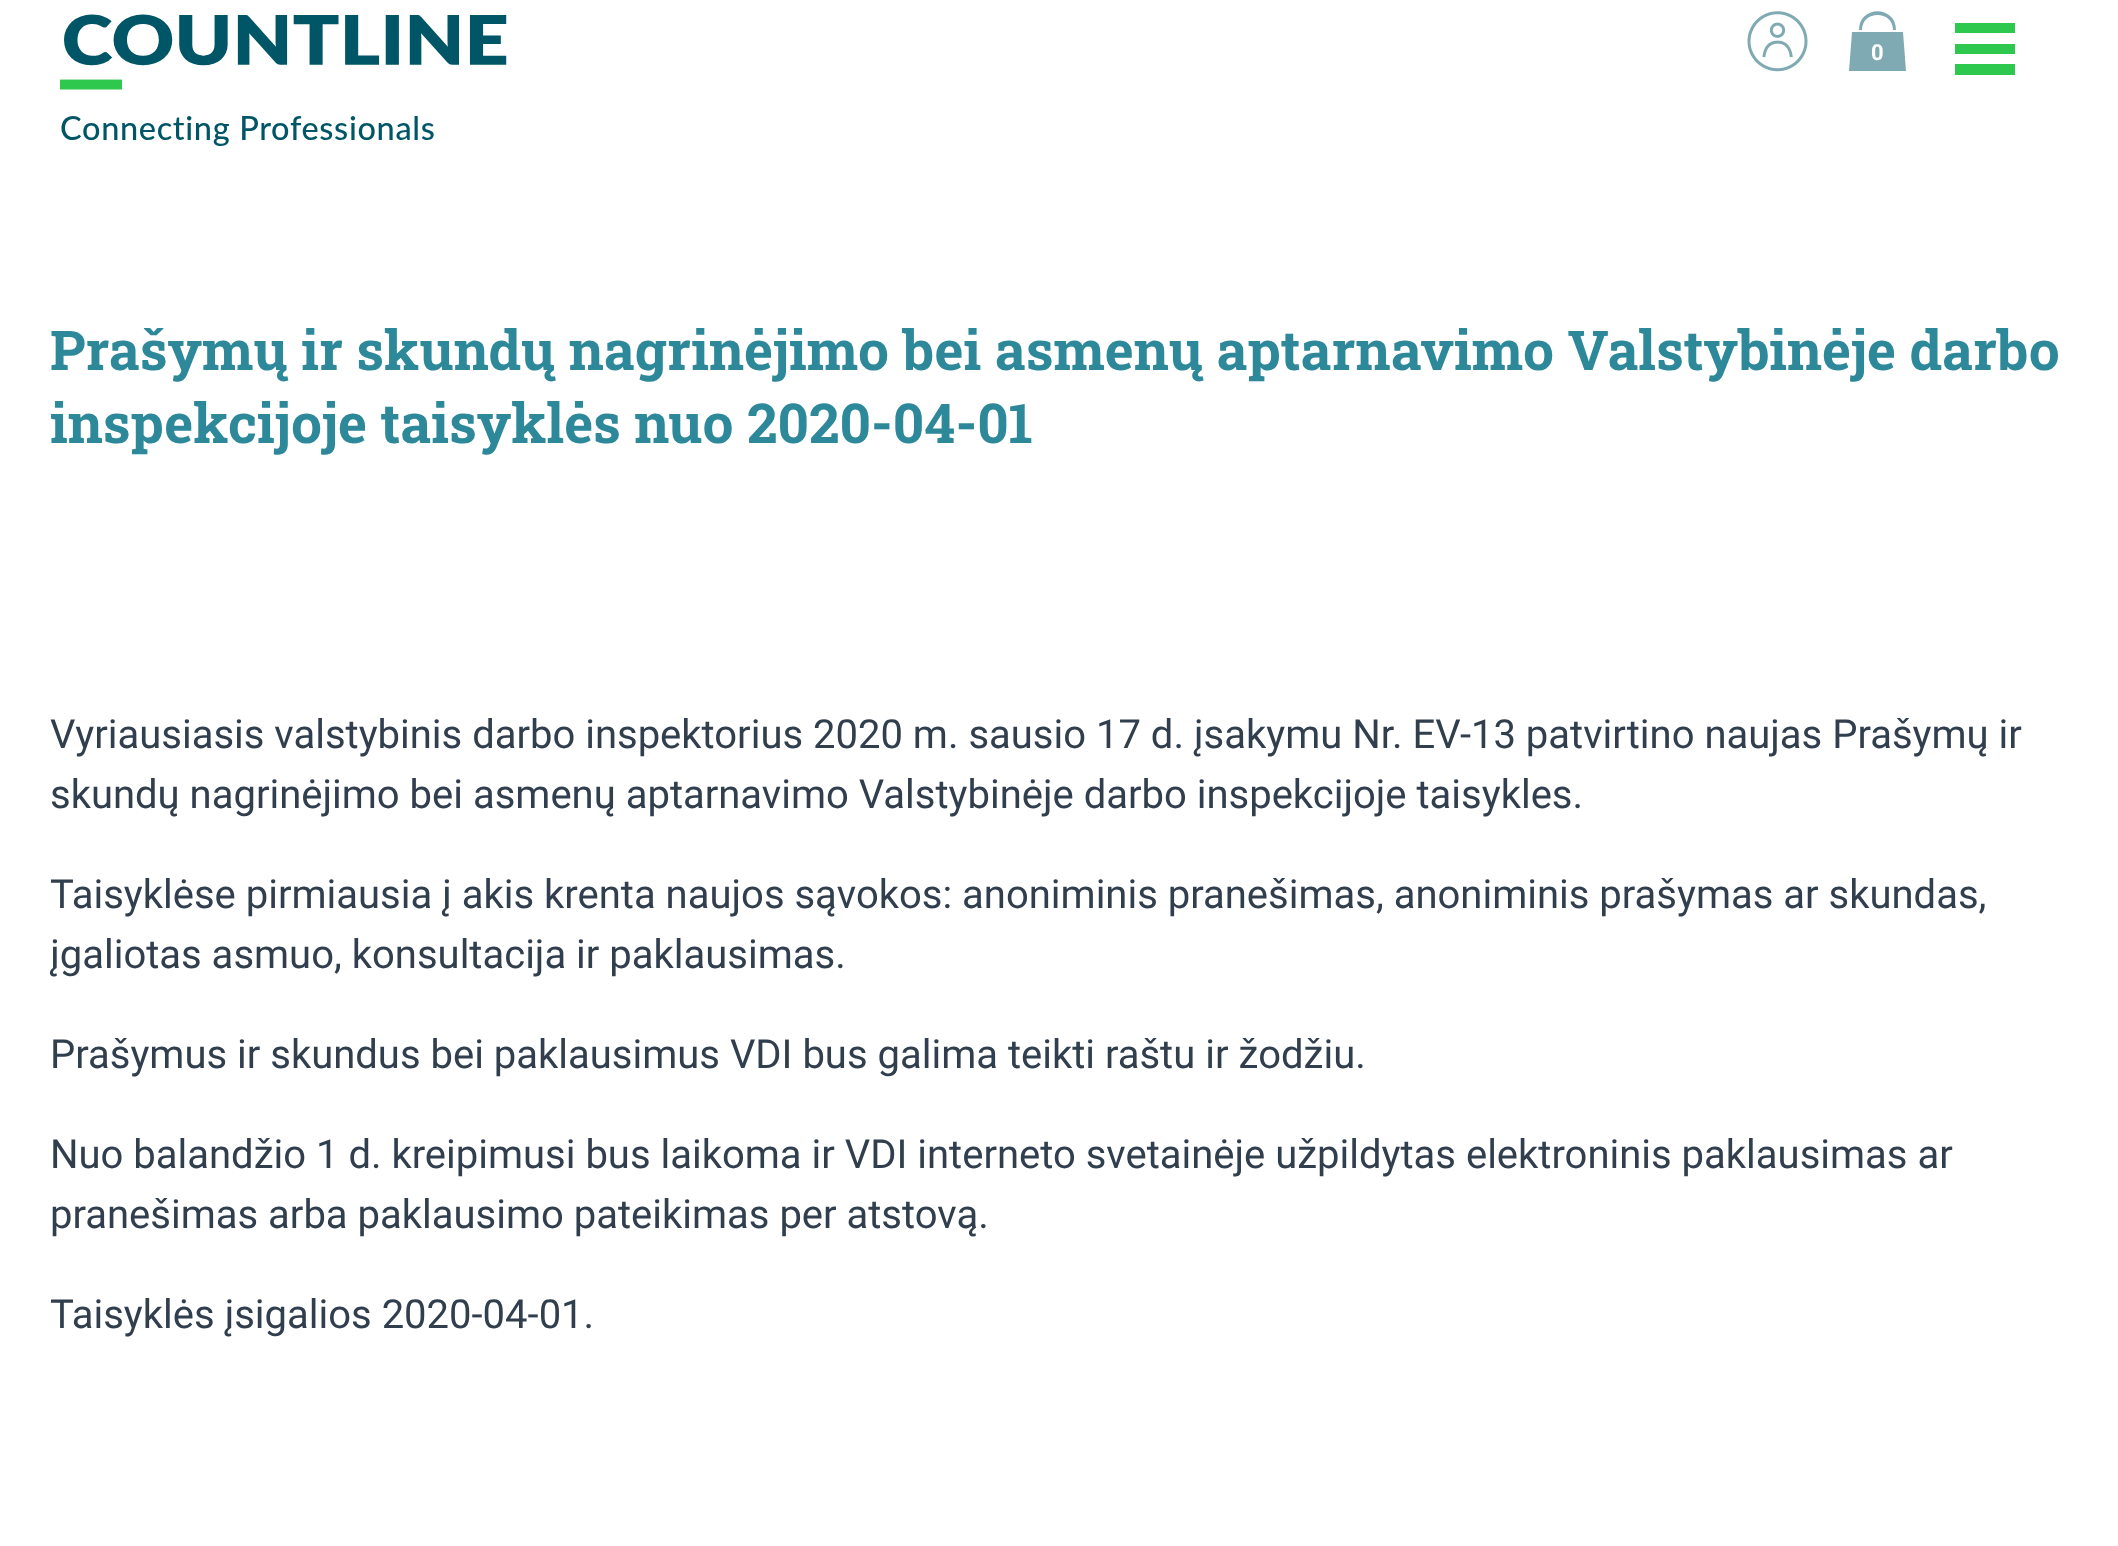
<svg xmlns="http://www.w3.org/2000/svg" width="2118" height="1546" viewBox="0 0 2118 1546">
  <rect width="100%" height="100%" fill="#fff"/>
  <image x="60" y="14" width="447" height="132" href="img/1.png"/>
  <image x="1747" y="11" width="61" height="61" href="img/2.png"/>
  <path d="M1903 32H1852L1849 71H1906ZM1896 30H1893C1893 10 1862 10 1862 30H1859C1859 5 1896 5 1896 30Z" fill="#80aab3"/>
  <path d="M1955 23H2015V33H1955ZM1955 44H2015V54H1955ZM1955 64H2015V75H1955Z" fill="#2dc84d"/>
  <text x="1871" y="60" font-family="Roboto" font-size="22" font-weight="bold" fill="#fff">0</text>
  <g font-family="Roboto Slab" font-size="55" font-weight="bold" fill="#2d889a">
    <text x="50" y="370">Prašymų ir skundų nagrinėjimo bei asmenų aptarnavimo Valstybinėje darbo</text>
    <text x="50" y="443">inspekcijoje taisyklės nuo 2020-04-01</text>
  </g>
  <g font-family="Roboto" font-size="40" fill="#303e4d">
    <text x="50" y="748">Vyriausiasis valstybinis darbo inspektorius 2020 m. sausio 17 d. įsakymu Nr. EV-13 patvirtino naujas Prašymų ir</text>
    <text x="50" y="808">skundų nagrinėjimo bei asmenų aptarnavimo Valstybinėje darbo inspekcijoje taisykles.</text>
    <text x="50" y="908">Taisyklėse pirmiausia į akis krenta naujos sąvokos: anoniminis pranešimas, anoniminis prašymas ar skundas,</text>
    <text x="50" y="968">įgaliotas asmuo, konsultacija ir paklausimas.</text>
    <text x="50" y="1068">Prašymus ir skundus bei paklausimus VDI bus galima teikti raštu ir žodžiu.</text>
    <text x="50" y="1168">Nuo balandžio 1 d. kreipimusi bus laikoma ir VDI interneto svetainėje užpildytas elektroninis paklausimas ar</text>
    <text x="50" y="1228">pranešimas arba paklausimo pateikimas per atstovą.</text>
    <text x="50" y="1328">Taisyklės įsigalios 2020-04-01.</text>
  </g>
</svg>
